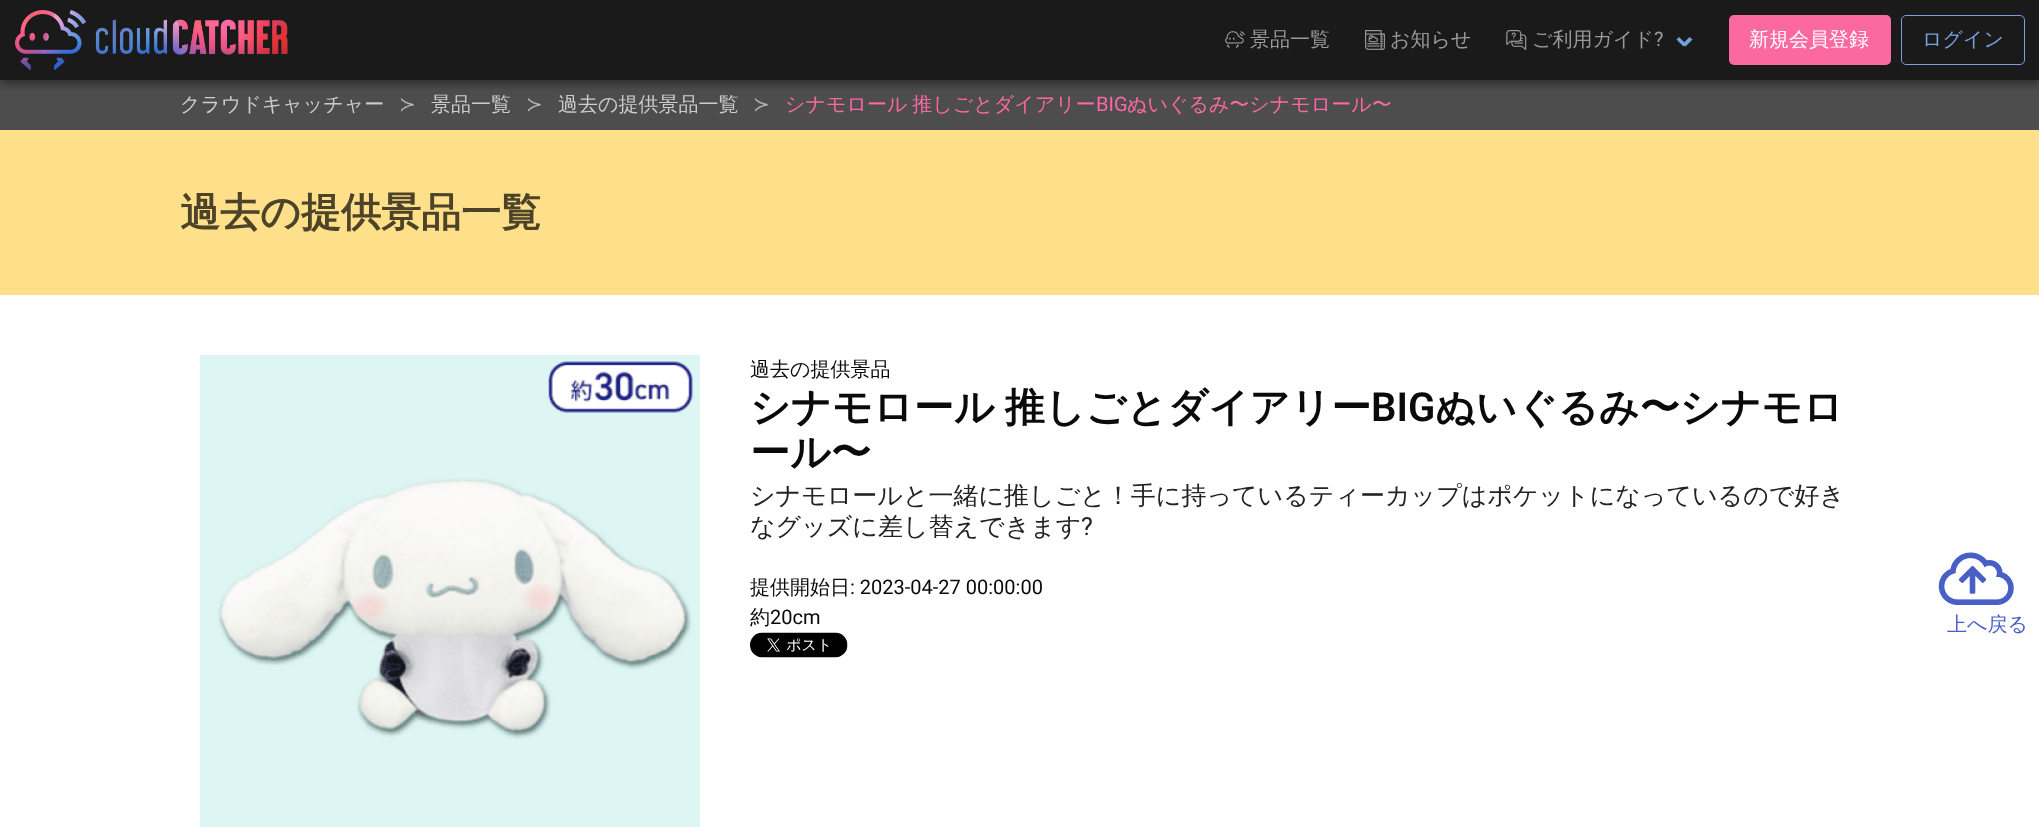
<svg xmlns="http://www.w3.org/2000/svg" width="2039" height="827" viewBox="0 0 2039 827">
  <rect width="100%" height="100%" fill="#ffe08a"/>
  <path d="M0 80h2039v50H0z" fill="#4d4d4d"/>
  <path d="M0 4h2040v80H0z" fill="#00000066" filter="blur(4px)"/>
  <path d="M0 0h2039v80H0z" fill="#1a1a1a"/>
  <image x="15" y="10" width="273" height="60" href="img/1.png"/>
  <image x="1225" y="31" width="20" height="18" href="img/2.png"/>
  <image x="1365" y="30" width="20" height="20" href="img/3.png"/>
  <image x="1506" y="30" width="21" height="20" href="img/4.png"/>
  <path d="M1682.5 44L1689.5 37L1692.5 39.5L1685.5 46.5Z" fill="#77a0df"/>
  <path d="M1676.5 39.5L1679 37L1686 44L1683.5 46.5Z" fill="#77a0df"/>
  <rect x="1729" y="15" width="162" height="50" rx="5" fill="#fc69a1"/>
  <rect x="1901.5" y="15.5" width="123" height="49" rx="4.5" fill="none" stroke="#77a0df"/>
  <path d="M0 295h2039v532H0z" fill="#fff"/>
  <image x="200" y="355" width="500" height="472" href="img/5.png"/>
  <image x="750" y="632" width="98" height="26" href="img/6.png"/>
  <image x="1938" y="552" width="76" height="53" href="img/7.png"/>
  <g font-family="WenQuanYi Zen Hei" font-size="20" font-weight="500" fill="#999">
    <text x="1250" y="46">景品一覧</text>
    <text x="1390" y="46">お知らせ</text>
    <text x="1532" y="46">ご利用ガイド</text>
  </g>
  <text x="1654" y="46" font-family="Roboto" font-size="20" fill="#999">?</text>
  <text x="1749" y="46" font-family="WenQuanYi Zen Hei" font-size="20" font-weight="500" fill="#fff">新規会員登録</text>
  <text x="1922" y="46" font-family="WenQuanYi Zen Hei" font-size="20" font-weight="500" fill="#77a0df">ログイン</text>
  <text x="180" y="111" font-family="WenQuanYi Zen Hei" font-size="20" font-weight="500" fill="#ccc">クラウドキャッチャー</text>
  <text x="399" y="111" font-family="DejaVu Sans" font-size="20" fill="#b5b5b5">≻</text>
  <text x="431" y="111" font-family="WenQuanYi Zen Hei" font-size="20" font-weight="500" fill="#ccc">景品一覧</text>
  <text x="526" y="111" font-family="DejaVu Sans" font-size="20" fill="#b5b5b5">≻</text>
  <text x="558" y="111" font-family="WenQuanYi Zen Hei" font-size="20" font-weight="500" fill="#ccc">過去の提供景品一覧</text>
  <text x="753" y="111" font-family="DejaVu Sans" font-size="20" fill="#b5b5b5">≻</text>
  <text x="785" y="111" word-spacing="-1" font-family="WenQuanYi Zen Hei" font-size="20" font-weight="500" fill="#fc69a1">シナモロール 推しごとダイアリー</text>
  <text x="1096" y="111" font-family="Roboto" font-size="20" fill="#fc69a1">BIG</text>
  <text x="1127" y="111" font-family="WenQuanYi Zen Hei" font-size="20" font-weight="500" fill="#fc69a1">ぬいぐるみ〜シナモロール〜</text>
  <text x="180" y="226" font-family="WenQuanYi Zen Hei" font-size="40" font-weight="bold" fill="#4d4329">過去の提供景品一覧</text>
  <text x="750" y="376" font-family="WenQuanYi Zen Hei" font-size="20" font-weight="500" fill="#0a0a0a">過去の提供景品</text>
  <text x="750" y="421" word-spacing="-2" font-family="WenQuanYi Zen Hei" font-size="40" font-weight="bold" fill="#0a0a0a">シナモロール 推しごとダイアリー</text>
  <text x="1371" y="421" font-family="Roboto" font-size="40" font-weight="600" fill="#0a0a0a">BIG</text>
  <g font-family="WenQuanYi Zen Hei" font-size="40" font-weight="bold" fill="#0a0a0a">
    <text x="1435" y="421">ぬいぐるみ〜シナモロ</text>
    <text x="750" y="466">ール〜</text>
  </g>
  <g font-family="WenQuanYi Zen Hei" font-size="25" font-weight="500" fill="#232323">
    <text x="750" y="504">シナモロールと一緒に推しごと！手に持っているティーカップはポケットになっているので好き</text>
    <text x="750" y="535">なグッズに差し替えできます</text>
  </g>
  <text x="1081" y="535" font-family="Roboto" font-size="25" fill="#232323">?</text>
  <text x="750" y="594" font-family="WenQuanYi Zen Hei" font-size="20" font-weight="500" fill="#0a0a0a">提供開始日</text>
  <text x="850" y="594" font-family="Roboto" font-size="20" fill="#0a0a0a">: 2023-04-27 00:00:00</text>
  <text x="750" y="624" font-family="WenQuanYi Zen Hei" font-size="20" font-weight="500" fill="#0a0a0a">約</text>
  <text x="770" y="624" font-family="Roboto" font-size="20" fill="#0a0a0a">20cm</text>
  <text x="1947" y="631" font-family="WenQuanYi Zen Hei" font-size="20" font-weight="500" fill="#485fc7">上へ戻る</text>
</svg>
